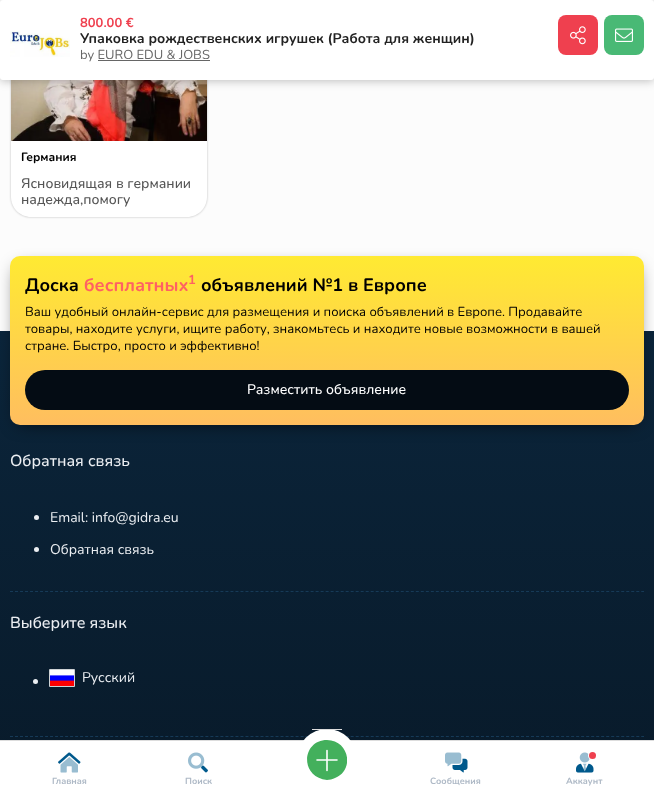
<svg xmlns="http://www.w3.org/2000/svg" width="654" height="800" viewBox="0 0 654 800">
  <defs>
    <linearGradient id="g1" gradientUnits="userSpaceOnUse" x1="327" y1="331" x2="327" y2="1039"><stop offset="0" stop-color="#0b253b"/><stop offset="0.72" stop-color="#081928"/></linearGradient>
    <linearGradient id="g2" gradientUnits="userSpaceOnUse" x1="327" y1="256" x2="327" y2="425"><stop offset="0" stop-color="#ffea32"/><stop offset="1" stop-color="#ffbe5f"/></linearGradient>
    <clipPath id="clip1"><path d="M307 740h40v40H307z"/></clipPath>
  </defs>
  <rect width="100%" height="100%" fill="#fcfcfc"/>
  <rect x="11" y="-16" width="196" height="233" rx="20" fill="#00000040" filter="blur(1px)"/>
  <image x="11" y="80" width="196" height="61" href="img/4.png"/>
  <rect y="1" width="654" height="80" rx="3" fill="#00000040" filter="blur(5px)"/>
  <rect width="654" height="80" rx="3" fill="#fff"/>
  <image x="10" y="30" width="60" height="27" href="img/1.png"/>
  <path d="M98 60h112v1H98z" fill="#666"/>
  <rect x="558" y="15" width="40" height="40" rx="8" fill="#ef404f"/>
  <image x="570" y="26" width="16" height="19" href="img/2.png"/>
  <rect x="604" y="15" width="40" height="40" rx="8" fill="#49b975"/>
  <image x="615" y="28" width="18" height="14" href="img/3.png"/>
  <path d="M11 141H207V197C207 208 198 217 187 217H31C20 217 11 208 11 197Z" fill="#fff"/>
  <path d="M0 331h654v409H0z" fill="url(#g1)"/>
  <rect x="18" y="269" width="618" height="153" rx="2" fill="#000000cc" filter="blur(9px)"/>
  <rect x="10" y="256" width="634" height="169" rx="10" fill="url(#g2)"/>
  <rect x="25" y="370" width="604" height="40" rx="20" fill="#040c14"/>
  <path d="M10 591.5H644" fill="none" stroke="#163a57" stroke-dasharray="3 2.01"/>
  <circle cx="36.5" cy="517.5" r="2.5" fill="#ebeef2"/>
  <circle cx="36.5" cy="549.5" r="2.5" fill="#ebeef2"/>
  <path d="M10 736.5H644" fill="none" stroke="#163a57" stroke-dasharray="3 2.01"/>
  <circle cx="35.5" cy="681.5" r="2.5" fill="#ebeef2"/>
  <path d="M49.5 669.5h25v17H49.5z" fill="none" stroke="#ced2d5"/>
  <image x="50" y="670" width="24" height="16" href="img/5.png"/>
  <path d="M0 741h654v59H0z" fill="#fff"/>
  <path d="M0 740h654v1H0z" fill="#ddd"/>
  <image x="58" y="752" width="23" height="12" href="img/6.png"/>
  <image x="60" y="757" width="18" height="16" href="img/7.png"/>
  <image x="201" y="765" width="7" height="8" href="img/9.png"/>
  <image x="188" y="752" width="17" height="17" href="img/8.png"/>
  <rect x="297" y="729" width="60" height="61" rx="30" fill="#fff"/>
  <path d="M312 729h30v1H312z" fill="#ddd"/>
  <g clip-path="url(#clip1)">
    <path d="M327 740C302 740 299 777 327 780C329 780 333 779 335 778C355 770 349 740 327 740Z" fill="#43b05c"/>
  </g>
  <path d="M327 750.5V770.5M337 760H317" fill="none" stroke="#fff" stroke-width="1.6" stroke-linecap="round" stroke-linejoin="round"/>
  <image x="452" y="758" width="16" height="15" href="img/11.png"/>
  <image x="445" y="752" width="17" height="15" href="img/10.png"/>
  <image x="576" y="763" width="18" height="10" href="img/13.png"/>
  <image x="579" y="752" width="11" height="19" href="img/12.png"/>
  <rect x="588" y="751" width="9" height="9" rx="4.5" fill="#fff" filter="blur(0.5px)"/>
  <circle cx="592.5" cy="755.5" r="3.5" fill="#ef404f"/>
  <text x="80" y="27" font-family="Nunito" font-size="13" font-weight="bold" fill="#ef404f">800.00 €</text>
  <text x="80" y="43" font-family="Nunito" font-size="14" font-weight="bold" fill="#222">Упаковка рождественских игрушек (Работа для женщин)</text>
  <text x="80" y="59" font-family="Nunito" font-size="13" fill="#666">by EURO EDU &amp; JOBS</text>
  <text x="21" y="161" font-family="Nunito" font-size="12" font-weight="bold" fill="#000">Германия</text>
  <g font-family="Nunito" font-size="14" font-weight="500" fill="#555">
    <text x="21" y="188">Ясновидящая в германии</text>
    <text x="21" y="204">надежда,помогу</text>
  </g>
  <text x="25" y="291" font-family="Nunito" font-size="18" font-weight="bold" fill="#000">Доска</text>
  <text x="84" y="291" font-family="Nunito" font-size="18" font-weight="bold" fill="#ff6163">бесплатных</text>
  <text x="188" y="284" font-family="Nunito" font-size="13" font-weight="bold" fill="#ff6163">1</text>
  <text x="201" y="291" font-family="Nunito" font-size="18" font-weight="bold" fill="#000">объявлений №1 в Европе</text>
  <g font-family="Nunito" font-size="13" fill="#000">
    <text x="25" y="316">Ваш удобный онлайн-сервис для размещения и поиска объявлений в Европе. Продавайте</text>
    <text x="25" y="333">товары, находите услуги, ищите работу, знакомьтесь и находите новые возможности в вашей</text>
    <text x="25" y="350">стране. Быстро, просто и эффективно!</text>
  </g>
  <text x="247" y="394" font-family="Nunito" font-size="14" font-weight="500" fill="#fff">Разместить объявление</text>
  <text x="10" y="466" font-family="Nunito" font-size="16" font-weight="500" fill="#ebeef2">Обратная связь</text>
  <g font-family="Nunito" font-size="14" fill="#ebeef2">
    <text x="50" y="522">Email: info@gidra.eu</text>
    <text x="50" y="554">Обратная связь</text>
  </g>
  <text x="10" y="628" font-family="Nunito" font-size="16" font-weight="500" fill="#ebeef2">Выберите язык</text>
  <text x="82" y="682" font-family="Nunito" font-size="14" fill="#ebeef2">Русский</text>
  <g font-family="Nunito" font-size="9" font-weight="bold" fill="#aeb9c6">
    <text x="52" y="784">Главная</text>
    <text x="185" y="784">Поиск</text>
    <text x="430" y="784">Сообщения</text>
    <text x="566" y="784">Аккаунт</text>
  </g>
</svg>
